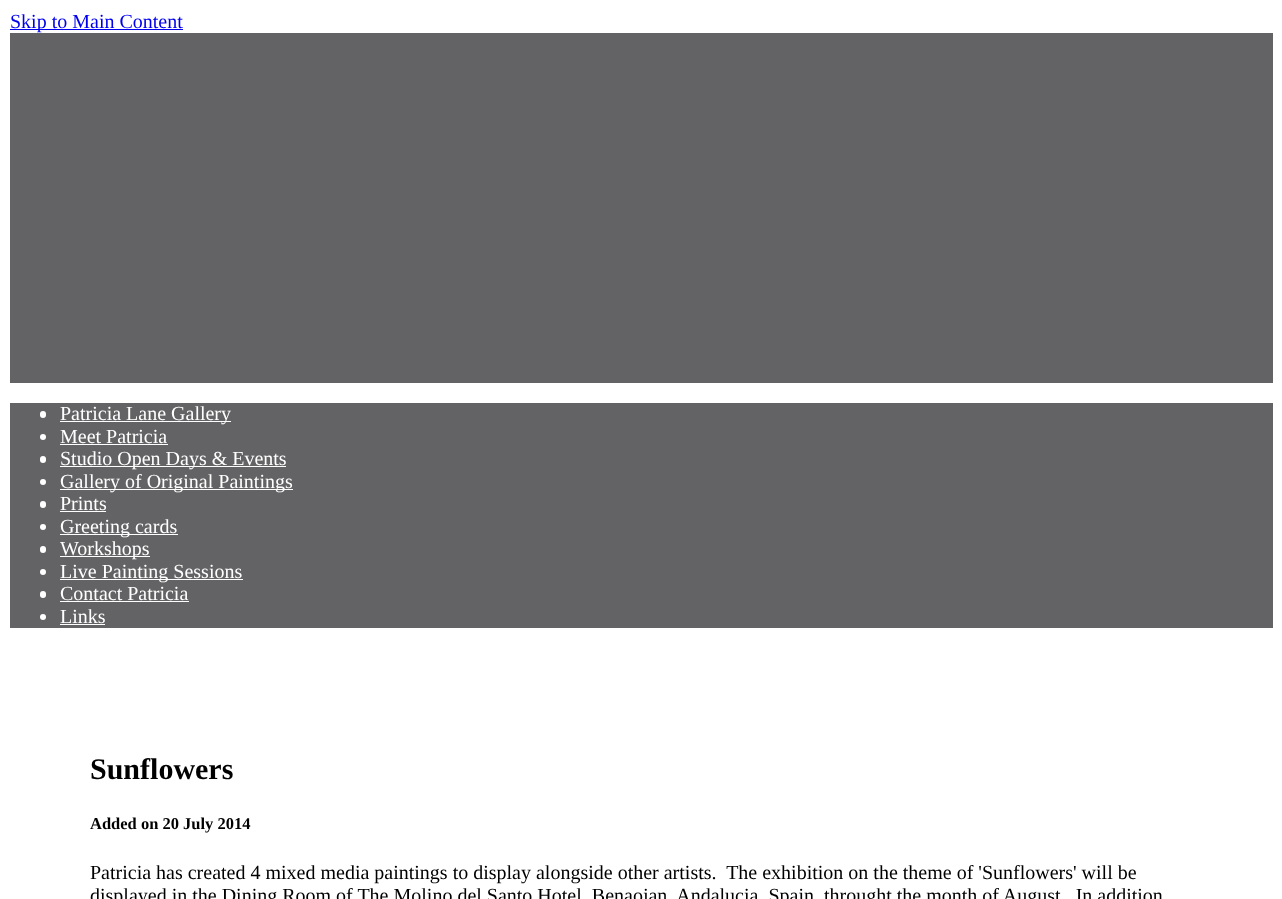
<svg xmlns="http://www.w3.org/2000/svg" width="1282" height="899" viewBox="0 0 1282 899">
  <rect width="100%" height="100%" fill="#fff"/>
  <path d="M10 29h173v1H10z" fill="#00e"/>
  <path d="M10 33h1263v350H10z" fill="#636365"/>
  <path d="M10 403h1263v225H10z" fill="#636365"/>
  <rect x="40" y="411" width="6" height="7" rx="3" fill="#fff"/>
  <path d="M60 421h171v1H60z" fill="#fff"/>
  <circle cx="43" cy="437" r="3" fill="#fff"/>
  <path d="M60 444h108v1H60z" fill="#fff"/>
  <rect x="40" y="456" width="6" height="7" rx="3" fill="#fff"/>
  <path d="M60 466h226v1H60z" fill="#fff"/>
  <circle cx="43" cy="482" r="3" fill="#fff"/>
  <path d="M60 489h233v1H60z" fill="#fff"/>
  <rect x="40" y="501" width="6" height="7" rx="3" fill="#fff"/>
  <path d="M60 511h46v1H60z" fill="#fff"/>
  <circle cx="43" cy="527" r="3" fill="#fff"/>
  <path d="M60 534h118v1H60z" fill="#fff"/>
  <rect x="40" y="546" width="6" height="7" rx="3" fill="#fff"/>
  <path d="M60 556h90v1H60z" fill="#fff"/>
  <circle cx="43" cy="572" r="3" fill="#fff"/>
  <path d="M60 579h183v1H60z" fill="#fff"/>
  <rect x="40" y="591" width="6" height="7" rx="3" fill="#fff"/>
  <path d="M60 601h129v1H60z" fill="#fff"/>
  <circle cx="43" cy="617" r="3" fill="#fff"/>
  <path d="M60 624h45v1H60z" fill="#fff"/>
  <text x="10" y="28" font-family="Liberation Serif" font-size="20" fill="#00e">Skip to Main Content</text>
  <g font-family="Liberation Serif" font-size="20" fill="#fff">
    <text x="60" y="420">Patricia Lane Gallery</text>
    <text x="60" y="443">Meet Patricia</text>
    <text x="60" y="465">Studio Open Days &amp; Events</text>
    <text x="60" y="488">Gallery of Original Paintings</text>
    <text x="60" y="510">Prints</text>
    <text x="60" y="533">Greeting cards</text>
    <text x="60" y="555">Workshops</text>
    <text x="60" y="578">Live Painting Sessions</text>
    <text x="60" y="600">Contact Patricia</text>
    <text x="60" y="623">Links</text>
  </g>
  <text x="90" y="779" font-family="Liberation Serif" font-size="30" font-weight="bold" fill="#000">Sunflowers</text>
  <text x="90" y="829" font-family="Liberation Serif" font-size="16.5" font-weight="bold" fill="#000">Added on 20 July 2014</text>
  <g font-family="Liberation Serif" font-size="20" fill="#000">
    <text x="90" y="879" xml:space="preserve">Patricia has created 4 mixed media paintings to display alongside other artists.  The exhibition on the theme of 'Sunflowers' will be</text>
    <text x="90" y="902" xml:space="preserve">displayed in the Dining Room of The Molino del Santo Hotel, Benaojan, Andalucia, Spain, throught the month of August.  In addition</text>
  </g>
</svg>
